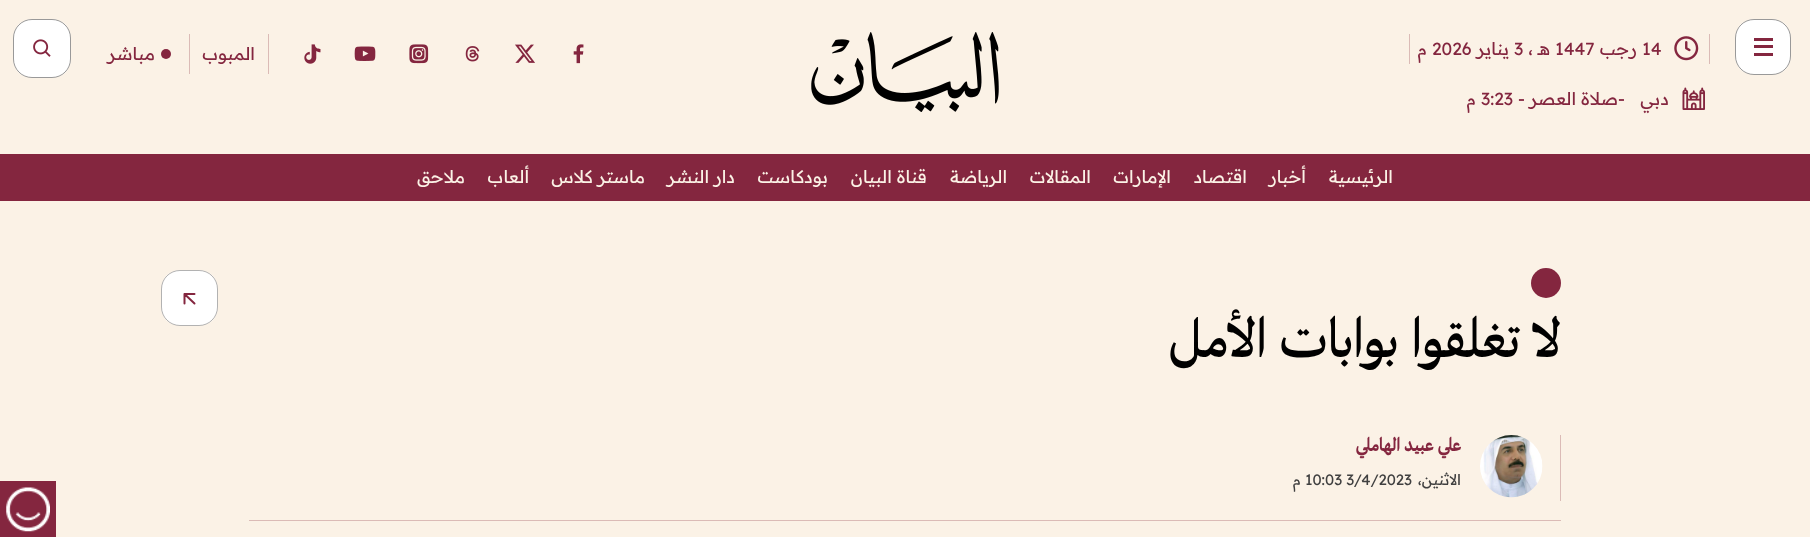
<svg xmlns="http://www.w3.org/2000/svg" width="1810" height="537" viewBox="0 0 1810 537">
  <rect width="100%" height="100%" fill="#fbf2e6"/>
  <rect x="1735" y="19" width="56" height="56" rx="19" fill="#fff"/>
  <rect x="1735.5" y="19.5" width="55" height="55" rx="18.5" fill="none" stroke="#00000066"/>
  <path d="M1754 38h19v3H1754z" fill="#84263f"/>
  <path d="M1754 45h19v3H1754z" fill="#84263f"/>
  <path d="M1754 53h19v3H1754z" fill="#84263f"/>
  <path d="M1709 34h1v30H1709z" fill="#dbbbb6"/>
  <path d="M1409 34h1v30H1409z" fill="#dbbbb6"/>
  <image x="1674" y="36" width="25" height="25" href="img/1.png"/>
  <image x="1682" y="87" width="23" height="23" href="img/2.png"/>
  <image x="811" y="32" width="188" height="80" href="img/3.png"/>
  <image x="573" y="44" width="11" height="20" href="img/4.png"/>
  <image x="515" y="44" width="20" height="19" href="img/5.png"/>
  <image x="465" y="46" width="15" height="16" href="img/6.png"/>
  <image x="409" y="44" width="20" height="20" href="img/7.png"/>
  <image x="354" y="46" width="22" height="15" href="img/8.png"/>
  <image x="304" y="44" width="17" height="20" href="img/9.png"/>
  <path d="M268 34h1v40H268z" fill="#dbbbb6"/>
  <path d="M189 34h1v40H189z" fill="#dbbbb6"/>
  <circle cx="166" cy="54" r="5" fill="#84263f"/>
  <rect x="13" y="19" width="58" height="59" rx="19" fill="#fff"/>
  <rect x="13.5" y="19.5" width="57" height="58" rx="18.5" fill="none" stroke="#00000066"/>
  <image x="33" y="39" width="18" height="18" href="img/10.png"/>
  <path d="M0 154h1810v47H0z" fill="#84263f"/>
  <circle cx="1546" cy="283" r="15" fill="#84263f"/>
  <rect x="161" y="270" width="57" height="56" rx="19" fill="#fff"/>
  <rect x="161.5" y="270.5" width="56" height="55" rx="18.5" fill="none" stroke="#0000004d"/>
  <path d="M194.5 303.5L184.5 294M184.5 303.5V294H194.5" fill="none" stroke="#84263f" stroke-width="2" stroke-linecap="round" stroke-linejoin="round"/>
  <path d="M249 520h1312v1H249z" fill="#dbbbb6"/>
  <path d="M1560 435h1v66H1560z" fill="#dbbbb6"/>
  <image x="1480" y="435" width="63" height="63" href="img/11.png"/>
  <path d="M0 481h56v56H0z" fill="#84263f"/>
  <image x="6" y="487" width="44" height="45" href="img/12.png"/>
  <text x="1642" y="55" font-family="Readex Pro" font-size="17.5" fill="#84263f">14</text>
  <text x="1637" y="55" font-family="Readex Pro" font-size="17.5" direction="rtl" fill="#84263f">رجب</text>
  <text x="1555" y="55" font-family="Readex Pro" font-size="17.5" fill="#84263f">1447</text>
  <text x="1550" y="55" font-family="Readex Pro" font-size="17.5" direction="rtl" fill="#84263f">هـ ،</text>
  <text x="1514" y="55" font-family="Readex Pro" font-size="17.5" fill="#84263f">3</text>
  <text x="1509" y="55" font-family="Readex Pro" font-size="17.5" direction="rtl" fill="#84263f">يناير</text>
  <text x="1432" y="55" font-family="Readex Pro" font-size="17.5" fill="#84263f">2026</text>
  <g font-family="Readex Pro" font-size="17.5" direction="rtl" fill="#84263f">
    <text x="1427" y="55">م</text>
    <text x="1669" y="105">دبي</text>
  </g>
  <text x="1618" y="105" font-family="Readex Pro" font-size="17.5" fill="#84263f">-</text>
  <text x="1618" y="105" font-family="Readex Pro" font-size="17.5" direction="rtl" fill="#84263f">صلاة العصر</text>
  <g font-family="Readex Pro" font-size="17.5" fill="#84263f">
    <text x="1518" y="105">-</text>
    <text x="1481" y="105">3:23</text>
  </g>
  <g font-family="Readex Pro" font-size="17.5" direction="rtl" fill="#84263f">
    <text x="1476" y="105">م</text>
    <text x="255" y="60">المبوب</text>
    <text x="155" y="60">مباشر</text>
  </g>
  <g font-family="Readex Pro" font-size="17.5" direction="rtl" fill="#fbf2e6">
    <text x="1393" y="183">الرئيسية</text>
    <text x="1306" y="183">أخبار</text>
    <text x="1247" y="183">اقتصاد</text>
    <text x="1171" y="183">الإمارات</text>
    <text x="1091" y="183">المقالات</text>
    <text x="1007" y="183">الرياضة</text>
    <text x="927" y="183">قناة البيان</text>
    <text x="828" y="183">بودكاست</text>
    <text x="735" y="183">دار النشر</text>
    <text x="645" y="183">ماستر كلاس</text>
    <text x="529" y="183">ألعاب</text>
    <text x="465" y="183">ملاحق</text>
  </g>
  <text x="1561" y="357" font-family="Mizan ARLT" font-size="60" font-weight="500" direction="rtl" fill="#000">لا تغلقوا بوابات الأمل</text>
  <text x="1461" y="451" font-family="Mizan ARLT" font-size="20" font-weight="bold" direction="rtl" fill="#84263f">علي عبيد الهاملي</text>
  <text x="1461" y="485" font-family="Readex Pro" font-size="15" direction="rtl" fill="#404040">الاثنين،</text>
  <text x="1305" y="485" font-family="Readex Pro" font-size="15" fill="#404040">10:03 3/4/2023</text>
  <text x="1301" y="485" font-family="Readex Pro" font-size="15" direction="rtl" fill="#404040">م</text>
</svg>
